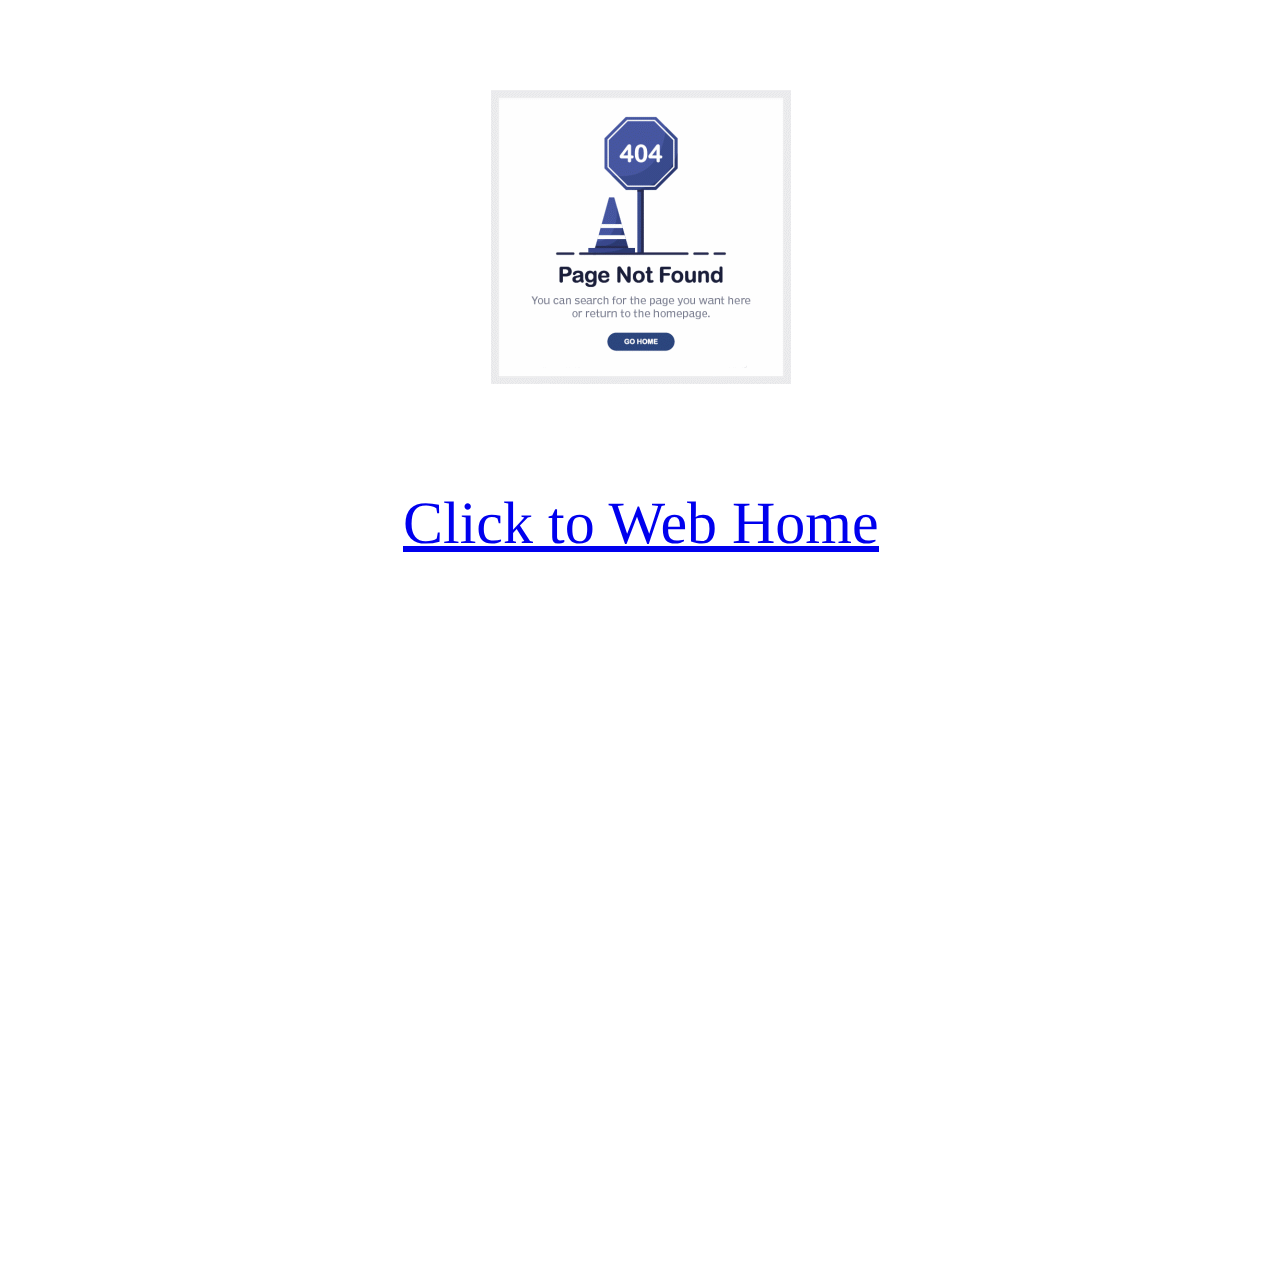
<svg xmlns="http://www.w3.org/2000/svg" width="1282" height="1266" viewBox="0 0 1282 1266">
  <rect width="100%" height="100%" fill="#fff"/>
  <image x="491" y="90" width="300" height="294" href="img/1.png"/>
  <path d="M403 546h476v6H403z" fill="#00e"/>
  <text x="403" y="543" font-family="Liberation Serif" font-size="60" fill="#00e">Click to Web Home</text>
</svg>
